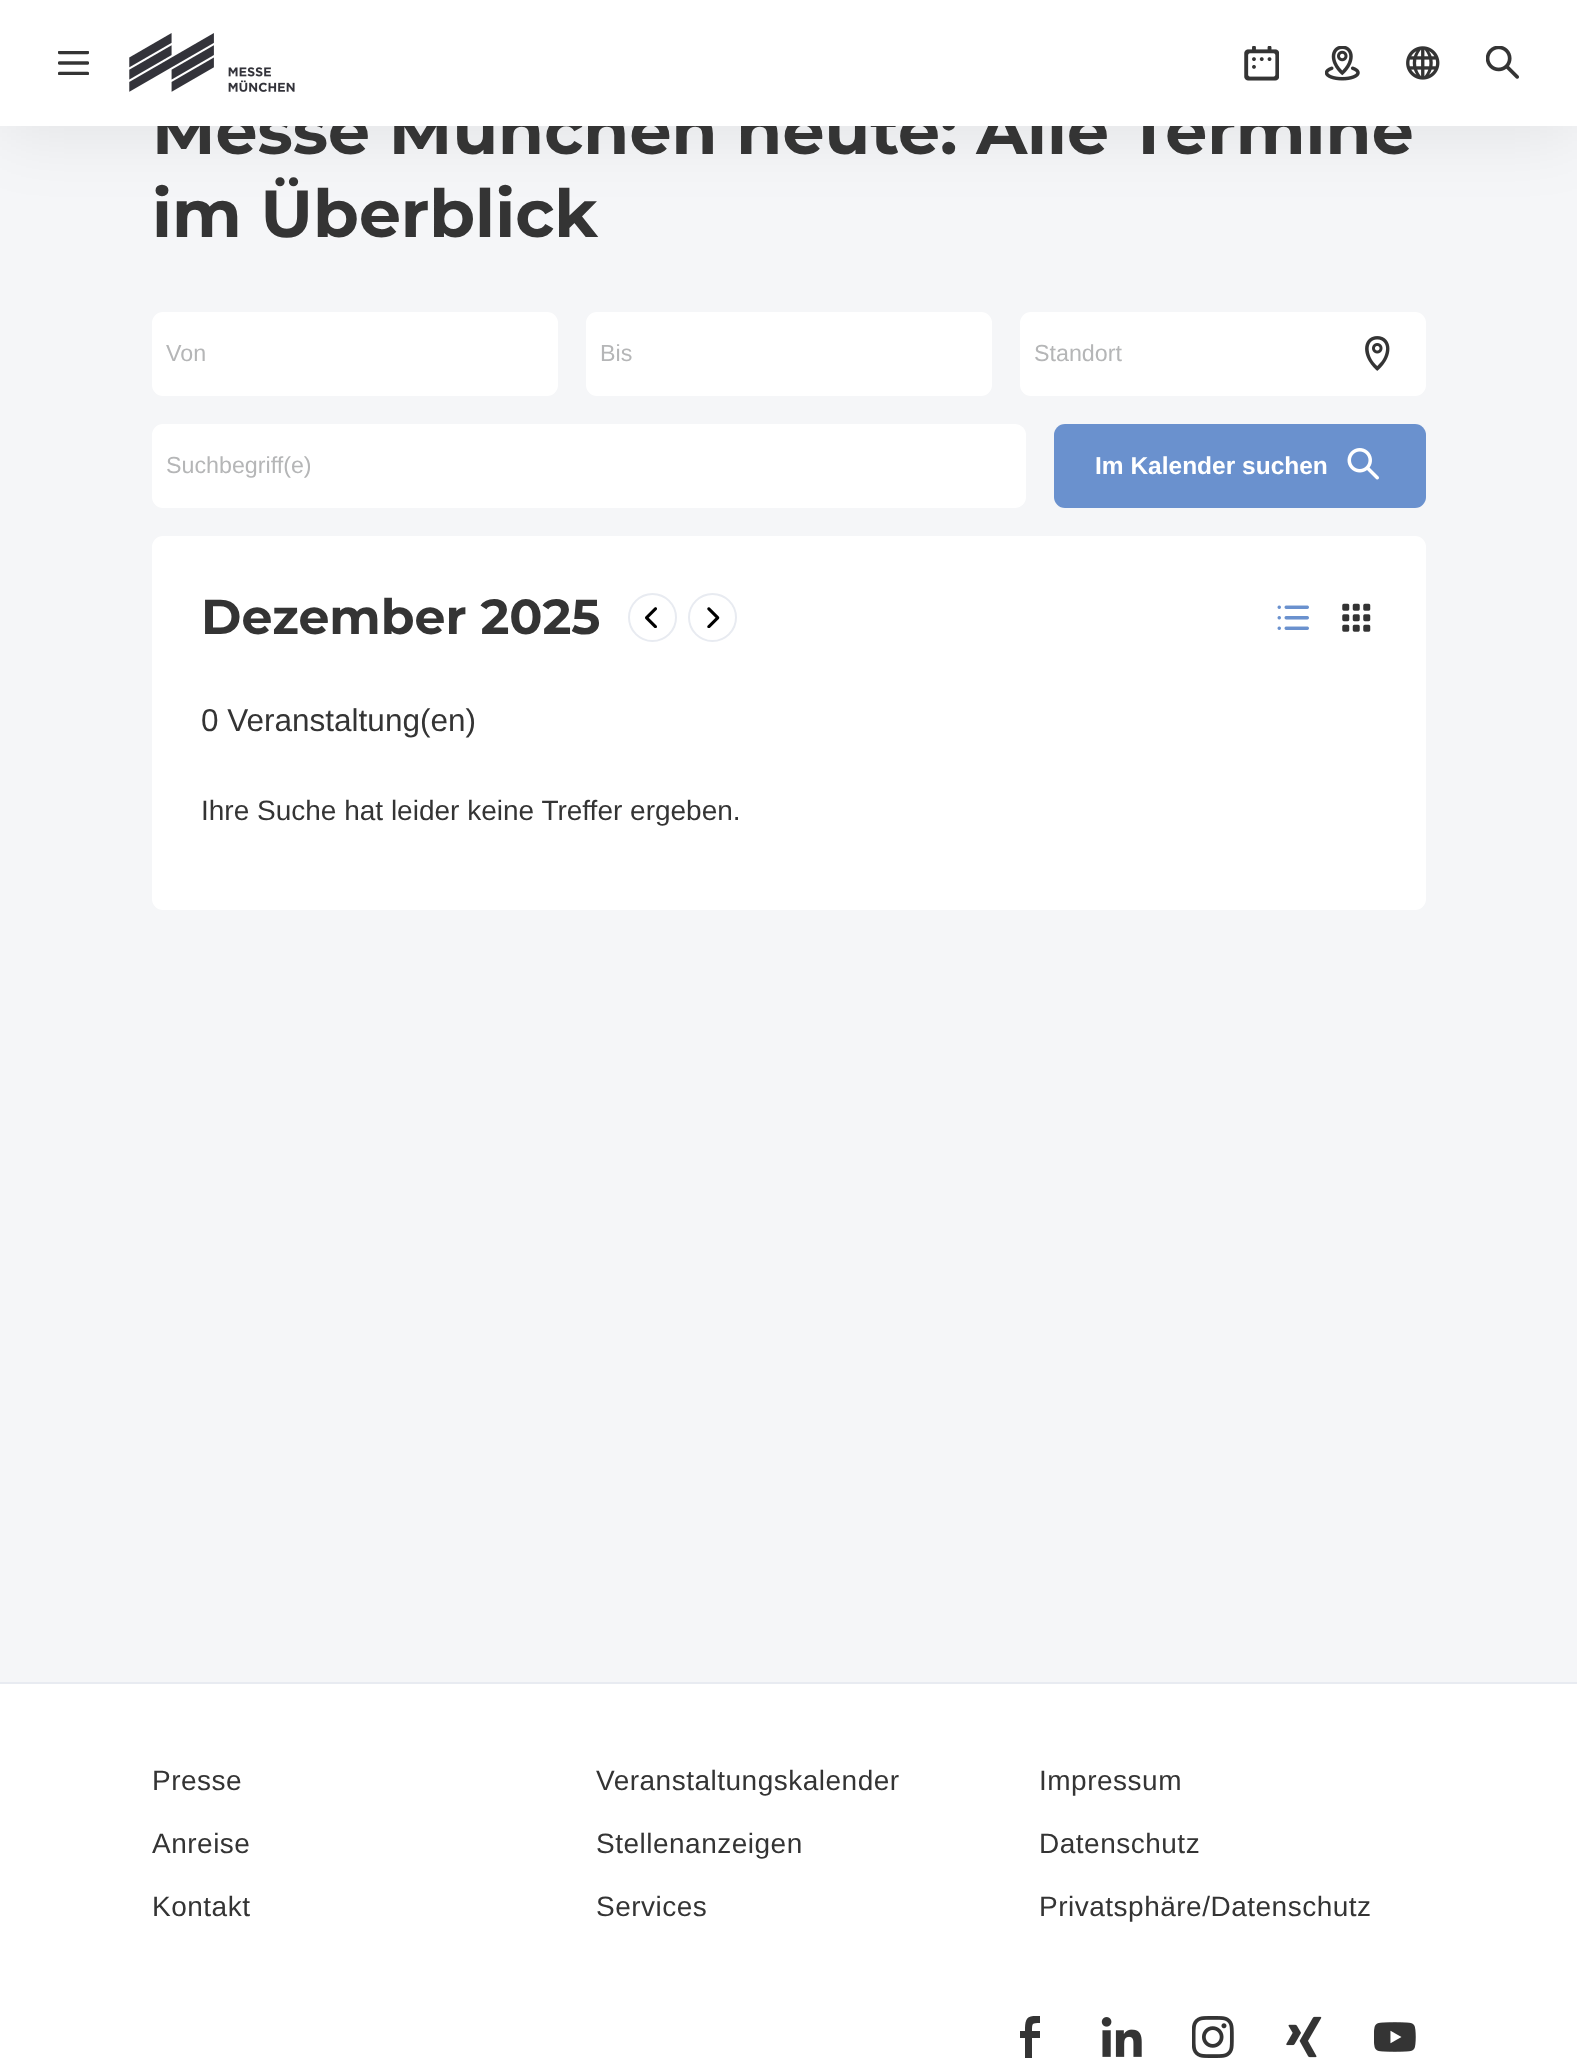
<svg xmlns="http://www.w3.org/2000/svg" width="1577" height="2067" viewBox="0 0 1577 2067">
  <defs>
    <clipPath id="clip1"><path d="M1010 2016h42v42H1010z"/></clipPath>
  </defs>
  <rect width="100%" height="100%" fill="#f5f6f8"/>
  <path d="M0 7h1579v126H0z" fill="#00000014" filter="blur(35px)"/>
  <rect x="152" y="312" width="406" height="84" rx="11" fill="#fff"/>
  <rect x="586" y="312" width="406" height="84" rx="11" fill="#fff"/>
  <rect x="1020" y="312" width="406" height="84" rx="11" fill="#fff"/>
  <image x="1365" y="336" width="25" height="35" href="img/7.png"/>
  <rect x="152" y="424" width="874" height="84" rx="11" fill="#fff"/>
  <rect x="1054" y="424" width="372" height="84" rx="11" fill="#6a91ce"/>
  <image x="1347" y="448" width="32" height="32" href="img/8.png"/>
  <rect x="152" y="536" width="1274" height="374" rx="11" fill="#fff"/>
  <circle cx="652.5" cy="617.5" r="23.5" fill="none" stroke="#e8ebf1" stroke-width="2"/>
  <image x="645" y="607" width="12" height="21" href="img/9.png"/>
  <circle cx="712.5" cy="617.5" r="23.5" fill="none" stroke="#e8ebf1" stroke-width="2"/>
  <image x="707" y="607" width="13" height="21" href="img/10.png"/>
  <image x="1277" y="605" width="32" height="25" href="img/11.png"/>
  <image x="1342" y="603" width="29" height="29" href="img/12.png"/>
  <path d="M0 1684h1577v383H0z" fill="#fff"/>
  <path d="M0 1682h1577v2H0z" fill="#e8ebf1"/>
  <g clip-path="url(#clip1)">
    <path d="M1025 2058V2038H1020V2031H1025C1025 2019 1026 2015 1040 2016V2023C1032 2023 1032 2023 1032 2031H1040V2038H1032V2058Z" fill="#343434"/>
  </g>
  <image x="1101" y="2017" width="41" height="40" href="img/13.png"/>
  <image x="1192" y="2016" width="42" height="42" href="img/14.png"/>
  <image x="1286" y="2016" width="36" height="42" href="img/15.png"/>
  <image x="1374" y="2022" width="42" height="30" href="img/16.png"/>
  <text x="152" y="154" font-family="Montserrat" font-size="66.5" font-weight="100" fill="#343434">Messe München heute: Alle Termine</text>
  <path d="M0 0h1577v126H0z" fill="#fff"/>
  <image x="1406" y="46" width="34" height="34" href="img/5.png"/>
  <image x="58" y="51" width="31" height="24" href="img/1.png"/>
  <image x="1486" y="46" width="33" height="33" href="img/6.png"/>
  <image x="1325" y="46" width="35" height="35" href="img/4.png"/>
  <image x="1244" y="46" width="35" height="35" href="img/3.png"/>
  <image x="129" y="33" width="166" height="59" href="img/2.png"/>
  <text x="152" y="237" font-family="Montserrat" font-size="66.5" font-weight="100" fill="#343434">im Überblick</text>
  <g font-family="Liberation Sans" font-size="23.25" fill="#b5b6b7">
    <text x="166" y="361">Von</text>
    <text x="600" y="361">Bis</text>
    <text x="1034" y="361">Standort</text>
    <text x="166" y="473">Suchbegriff(e)</text>
  </g>
  <text x="1095" y="474" font-family="Liberation Sans" font-size="24.5" font-weight="bold" fill="#fff">Im Kalender suchen</text>
  <text x="201" y="634" font-family="Montserrat" font-size="49" font-weight="100" fill="#343434">Dezember 2025</text>
  <text x="201" y="731" font-family="Liberation Sans" font-size="31.5" fill="#343434">0 Veranstaltung(en)</text>
  <text x="201" y="820" font-family="Liberation Sans" font-size="28" fill="#343434">Ihre Suche hat leider keine Treffer ergeben.</text>
  <g font-family="Liberation Sans" font-size="28" letter-spacing="0.5" fill="#343434">
    <text x="152" y="1790">Presse</text>
    <text x="152" y="1853">Anreise</text>
    <text x="152" y="1916">Kontakt</text>
    <text x="596" y="1790">Veranstaltungskalender</text>
    <text x="596" y="1853">Stellenanzeigen</text>
    <text x="596" y="1916">Services</text>
    <text x="1039" y="1790">Impressum</text>
    <text x="1039" y="1853">Datenschutz</text>
    <text x="1039" y="1916">Privatsphäre/Datenschutz</text>
  </g>
</svg>
